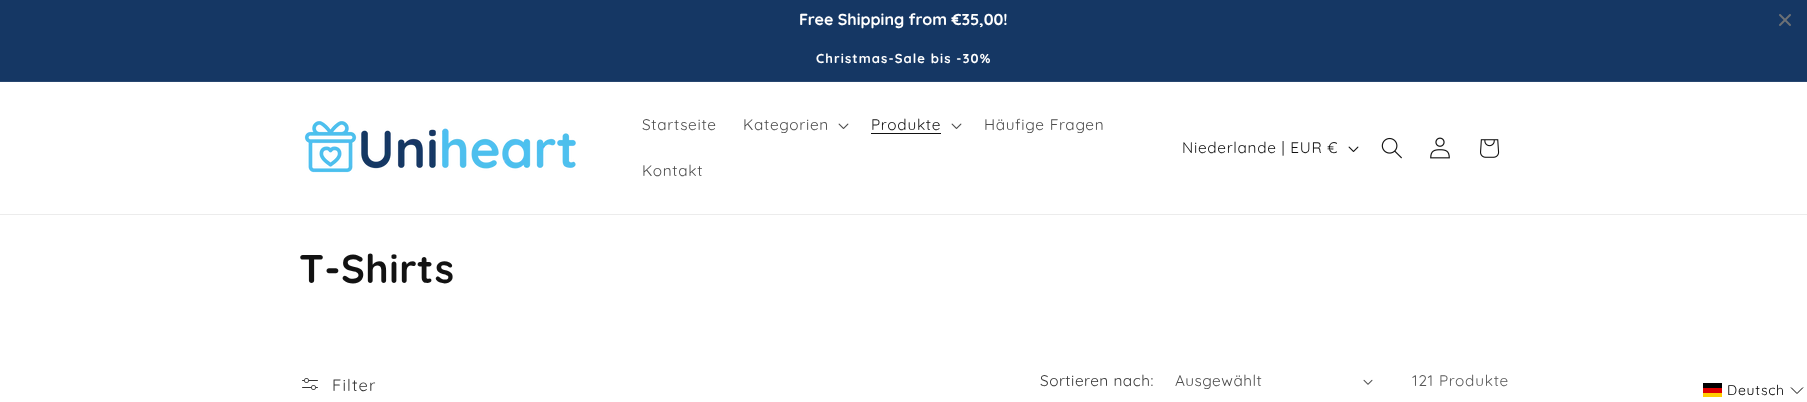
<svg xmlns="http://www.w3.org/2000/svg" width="1807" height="402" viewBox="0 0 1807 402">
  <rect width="100%" height="100%" fill="#fff"/>
  <path d="M0 0h1807v81H0z" fill="#153764"/>
  <image x="1779" y="14" width="12" height="12" href="img/1.png"/>
  <path d="M0 81h1807v1H0z" fill="#284770"/>
  <path d="M0 214h1807v1H0z" fill="#ececec"/>
  <image x="304" y="121" width="272" height="52" href="img/2.png"/>
  <image x="838" y="123" width="11" height="6" href="img/3.png"/>
  <path d="M871 133h70v1H871z" fill="#121212"/>
  <image x="951" y="123" width="11" height="6" href="img/3.png"/>
  <image x="1348" y="146" width="11" height="6" href="img/4.png"/>
  <image x="1381" y="137" width="21" height="22" href="img/5.png"/>
  <image x="1430" y="137" width="20" height="22" href="img/6.png"/>
  <image x="1480" y="139" width="20" height="19" href="img/7.png"/>
  <image x="302" y="378" width="16" height="12" href="img/8.png"/>
  <image x="1363" y="379" width="10" height="6" href="img/9.png"/>
  <path d="M1703 393h19v4H1703z" fill="#ffce00"/>
  <path d="M1703 383h19v5H1703z" fill="#000"/>
  <path d="M1703 388h19v5H1703z" fill="#d00"/>
  <path d="M1791 387.5L1797 393.5L1803 387.5" fill="none" stroke="#000"/>
  <text x="799" y="25" font-family="Quicksand" font-size="16" font-weight="bold" fill="#fff">Free Shipping from €35,00!</text>
  <text x="816" y="63" font-family="Quicksand" font-size="13" font-weight="bold" letter-spacing="1.1" fill="#fff">Christmas-Sale bis -30%</text>
  <g font-family="Quicksand" font-size="15.4" font-weight="300" letter-spacing="0.7" fill="#4d4d4d">
    <text x="642" y="130">Startseite</text>
    <text x="743" y="130">Kategorien</text>
  </g>
  <text x="871" y="130" font-family="Quicksand" font-size="15.4" font-weight="300" letter-spacing="0.7" fill="#121212">Produkte</text>
  <g font-family="Quicksand" font-size="15.4" font-weight="300" letter-spacing="0.7" fill="#4d4d4d">
    <text x="984" y="130">Häufige Fragen</text>
    <text x="642" y="176">Kontakt</text>
  </g>
  <text x="1182" y="153" font-family="Quicksand" font-size="15.4" font-weight="300" letter-spacing="0.7" fill="#121212">Niederlande | EUR €</text>
  <text x="299" y="283" font-family="Quicksand" font-size="40" font-weight="bold" letter-spacing="0.5" fill="#121212">T-Shirts</text>
  <text x="332" y="391" font-family="Quicksand" font-size="16.5" font-weight="300" letter-spacing="1.1" fill="#363636">Filter</text>
  <text x="1040" y="386" font-family="Quicksand" font-size="15.4" font-weight="300" letter-spacing="0.5" fill="#363636">Sortieren nach:</text>
  <text x="1175" y="386" font-family="Quicksand" font-size="15.4" font-weight="300" letter-spacing="0.5" fill="#4d4d4d">Ausgewählt</text>
  <text x="1412" y="386" font-family="Quicksand" font-size="15.4" font-weight="300" letter-spacing="0.7" fill="#595959">121 Produkte</text>
  <text x="1727" y="395" font-family="Quicksand" font-size="14" font-weight="300" letter-spacing="0.7" fill="#000">Deutsch</text>
</svg>
